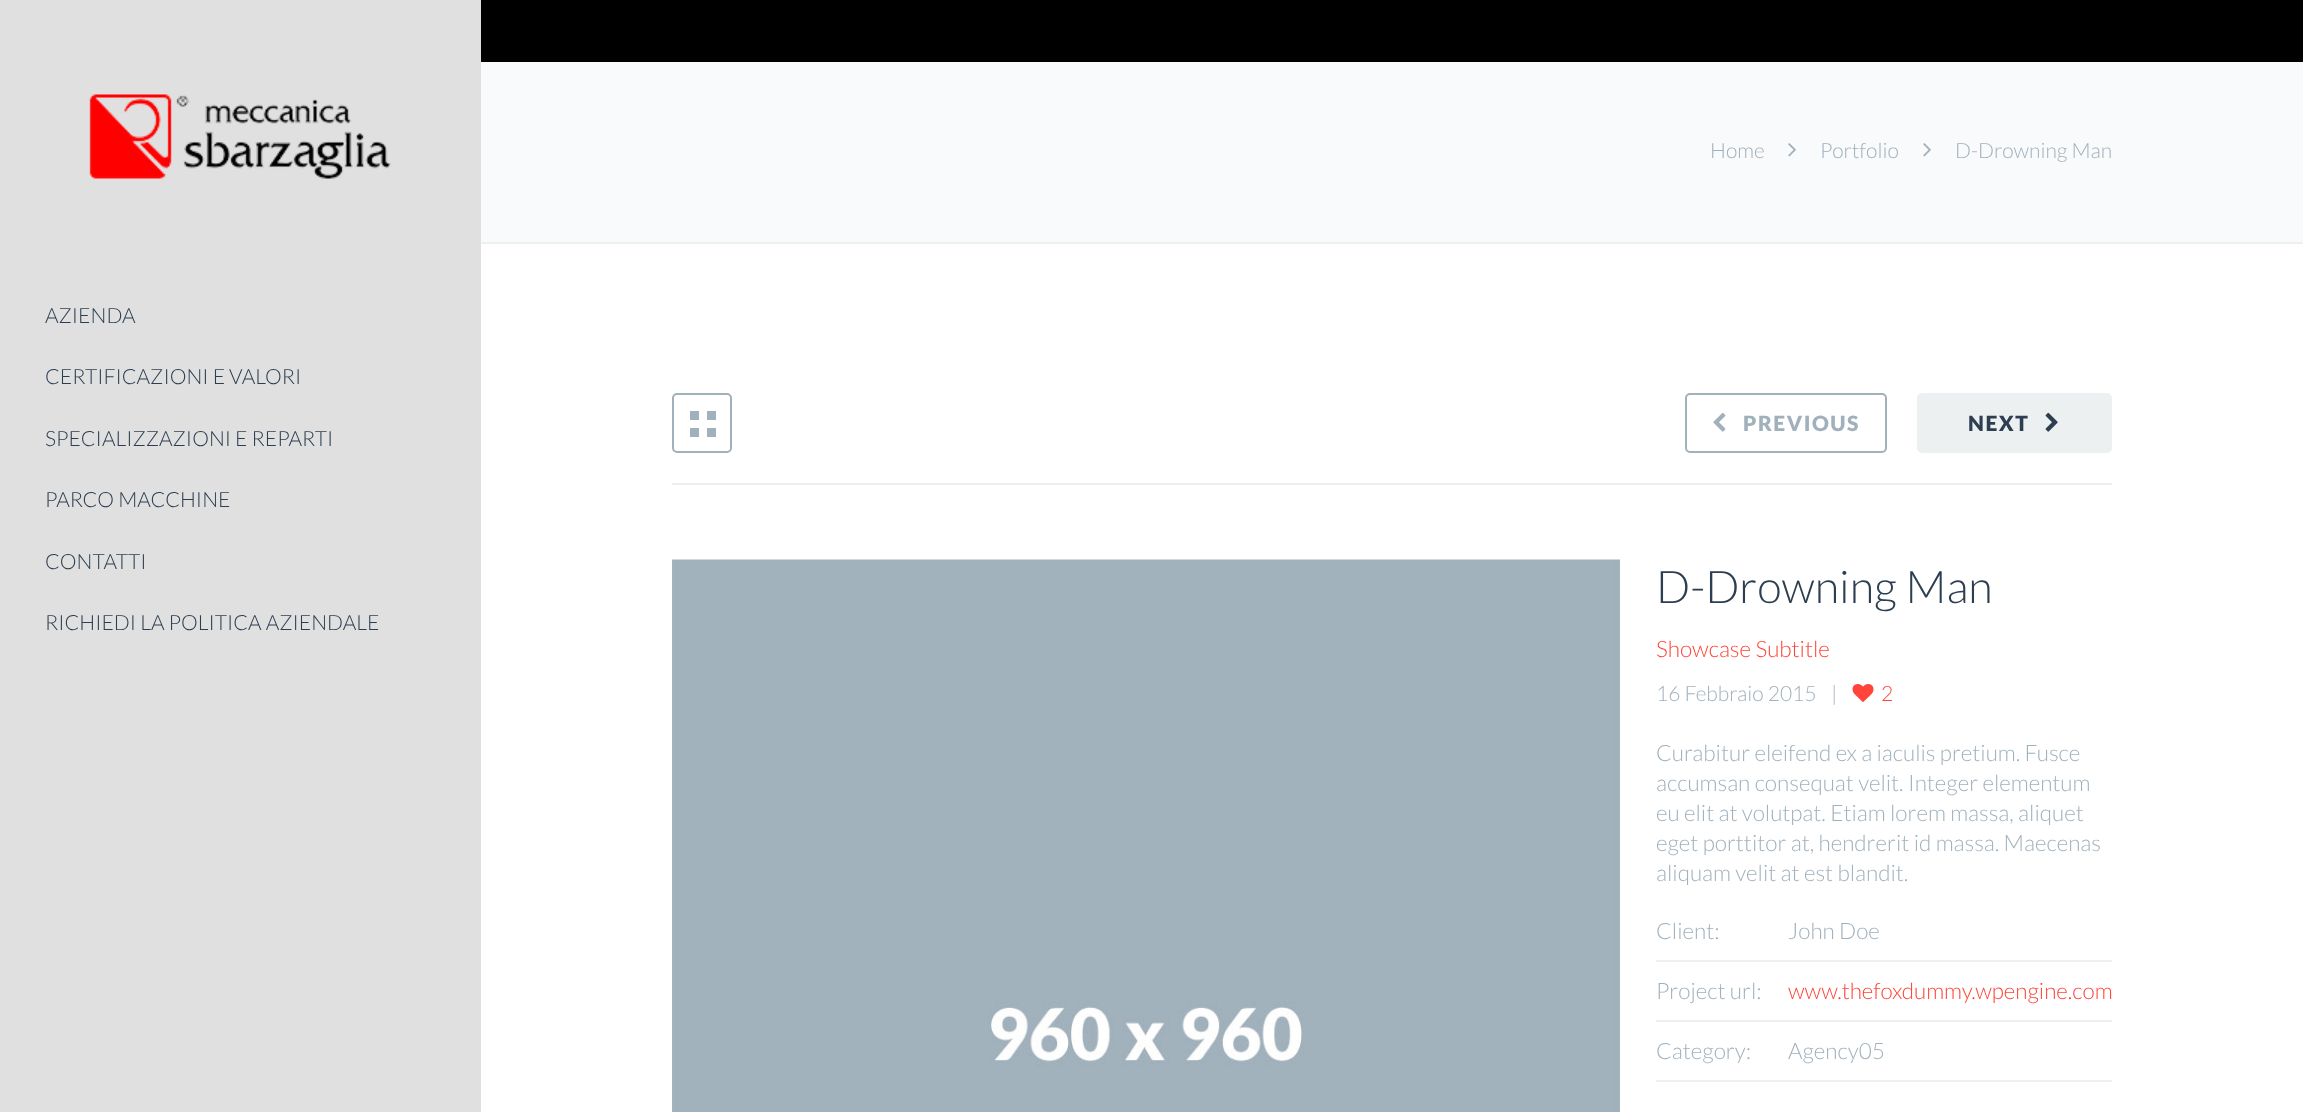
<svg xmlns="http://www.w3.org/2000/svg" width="2303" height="1112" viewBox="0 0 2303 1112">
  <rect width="100%" height="100%" fill="#fff"/>
  <path d="M481 0h1822v62H481z" fill="#000"/>
  <path d="M481 62h1822v180H481z" fill="#f9fafb"/>
  <path d="M480 242h1823v2H480z" fill="#ecf0f1"/>
  <image x="1788" y="143" width="8" height="14" href="img/1.png"/>
  <image x="1923" y="143" width="8" height="14" href="img/1.png"/>
  <path d="M0 0h481v1112H0z" fill="#e0e0e0"/>
  <image x="89" y="94" width="302" height="85" href="img/2.png"/>
  <path d="M672 483h1440v2H672z" fill="#ecf0f1"/>
  <rect x="673" y="394" width="58" height="58" rx="4" fill="none" stroke="#a1b1bc" stroke-width="2"/>
  <path d="M707 411h9v9H707z" fill="#a1b1bc"/>
  <path d="M690 411h9v9H690z" fill="#a1b1bc"/>
  <path d="M707 428h9v9H707z" fill="#a1b1bc"/>
  <path d="M690 428h9v9H690z" fill="#a1b1bc"/>
  <rect x="1686" y="394" width="200" height="58" rx="4" fill="none" stroke="#a1b1bc" stroke-width="2"/>
  <image x="1713" y="412" width="13" height="20" href="img/3.png"/>
  <rect x="1918" y="394" width="193" height="58" rx="4" fill="#ecf0f1" stroke="#ecf0f1" stroke-width="2"/>
  <image x="2045" y="412" width="13" height="20" href="img/4.png"/>
  <image x="672" y="559" width="948" height="553" href="img/5.png"/>
  <image x="1852" y="684" width="22" height="18" href="img/6.png"/>
  <path d="M1656 960h456v2H1656z" fill="#ecf0f1"/>
  <path d="M1656 1020h456v2H1656z" fill="#ecf0f1"/>
  <path d="M1656 1080h456v2H1656z" fill="#ecf0f1"/>
  <g font-family="Lato" font-size="21" font-weight="300" fill="#a1b1bc">
    <text x="1710" y="158">Home</text>
    <text x="1820" y="158">Portfolio</text>
    <text x="1955" y="158">D-Drowning Man</text>
  </g>
  <g font-family="Lato" font-size="21" font-weight="300" fill="#2c3e50">
    <text x="45" y="323">AZIENDA</text>
    <text x="45" y="384">CERTIFICAZIONI E VALORI</text>
    <text x="45" y="446">SPECIALIZZAZIONI E REPARTI</text>
    <text x="45" y="507">PARCO MACCHINE</text>
    <text x="45" y="569">CONTATTI</text>
    <text x="45" y="630">RICHIEDI LA POLITICA AZIENDALE</text>
  </g>
  <text x="1743" y="431" font-family="Lato" font-size="21" font-weight="900" letter-spacing="1.5" fill="#a1b1bc">PREVIOUS</text>
  <text x="1968" y="431" font-family="Lato" font-size="21" font-weight="900" letter-spacing="1.5" fill="#2c3e50">NEXT</text>
  <text x="1656" y="603" font-family="Lato" font-size="45" font-weight="300" fill="#2c3e50">D-Drowning Man</text>
  <text x="1656" y="657" font-family="Lato" font-size="22.5" font-weight="300" fill="#ff4539">Showcase Subtitle</text>
  <g font-family="Lato" font-size="21" font-weight="300" fill="#a1b1bc">
    <text x="1656" y="701">16 Febbraio 2015</text>
    <text x="1831" y="701">|</text>
  </g>
  <text x="1881" y="701" font-family="Lato" font-size="21" font-weight="300" fill="#ff4539">2</text>
  <g font-family="Lato" font-size="22.5" font-weight="300" fill="#a1b1bc">
    <text x="1656" y="761">Curabitur eleifend ex a iaculis pretium. Fusce</text>
    <text x="1656" y="791">accumsan consequat velit. Integer elementum</text>
    <text x="1656" y="821">eu elit at volutpat. Etiam lorem massa, aliquet</text>
    <text x="1656" y="851">eget porttitor at, hendrerit id massa. Maecenas</text>
    <text x="1656" y="881">aliquam velit at est blandit.</text>
    <text x="1656" y="939">Client:</text>
    <text x="1788" y="939">John Doe</text>
    <text x="1656" y="999">Project url:</text>
  </g>
  <text x="1788" y="999" font-family="Lato" font-size="22.5" font-weight="300" fill="#ff4539">www.thefoxdummy.wpengine.com</text>
  <g font-family="Lato" font-size="22.5" font-weight="300" fill="#a1b1bc">
    <text x="1656" y="1059">Category:</text>
    <text x="1788" y="1059">Agency05</text>
  </g>
</svg>
